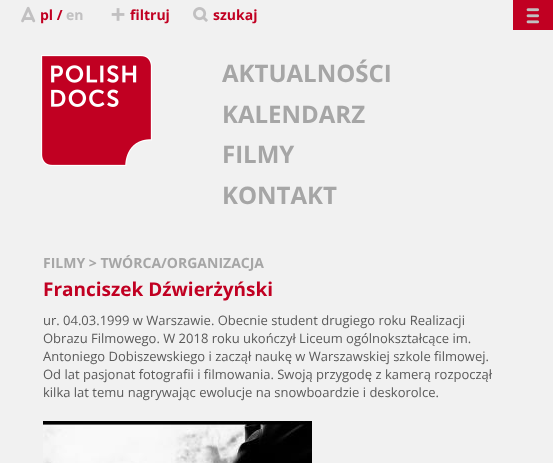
<svg xmlns="http://www.w3.org/2000/svg" width="553" height="463" viewBox="0 0 553 463">
  <rect width="100%" height="100%" fill="#f1f1f1"/>
  <image x="21" y="6" width="15" height="17" href="img/1.png"/>
  <image x="111" y="8" width="14" height="13" href="img/2.png"/>
  <image x="193" y="7" width="15" height="15" href="img/3.png"/>
  <path d="M513 0h40v30H513z" fill="#c10022"/>
  <image x="526" y="8" width="13" height="16" href="img/4.png"/>
  <image x="41" y="55" width="111" height="111" href="img/5.png"/>
  <image x="43" y="421" width="269" height="42" href="img/6.png"/>
  <text x="40" y="20" font-family="Open Sans" font-size="14" font-weight="bold" fill="#c10022">pl /</text>
  <text x="66" y="20" font-family="Open Sans" font-size="14" font-weight="bold" fill="#c1c0c1">en</text>
  <g font-family="Open Sans" font-size="14" font-weight="bold" fill="#c10022">
    <text x="130" y="20">filtruj</text>
    <text x="213" y="20">szukaj</text>
  </g>
  <g font-family="Open Sans" font-size="24" font-weight="bold" fill="#a6a6a6">
    <text x="222" y="82">AKTUALNOŚCI</text>
    <text x="222" y="123">KALENDARZ</text>
    <text x="222" y="163">FILMY</text>
    <text x="222" y="204">KONTAKT</text>
  </g>
  <text x="43" y="268" font-family="Open Sans" font-size="14" font-weight="bold" fill="#a6a6a6">FILMY &gt; TWÓRCA/ORGANIZACJA</text>
  <text x="43" y="296" font-family="Open Sans" font-size="19" font-weight="bold" fill="#c10022">Franciszek Dźwierżyński</text>
  <g font-family="Open Sans" font-size="13" fill="#5a5a5a">
    <text x="43" y="325">ur. 04.03.1999 w Warszawie. Obecnie student drugiego roku Realizacji</text>
    <text x="43" y="343">Obrazu Filmowego. W 2018 roku ukończył Liceum ogólnokształcące im.</text>
    <text x="43" y="361">Antoniego Dobiszewskiego i zaczął naukę w Warszawskiej szkole filmowej.</text>
    <text x="43" y="379">Od lat pasjonat fotografii i filmowania. Swoją przygodę z kamerą rozpoczął</text>
    <text x="43" y="397">kilka lat temu nagrywając ewolucje na snowboardzie i deskorolce.</text>
  </g>
</svg>
